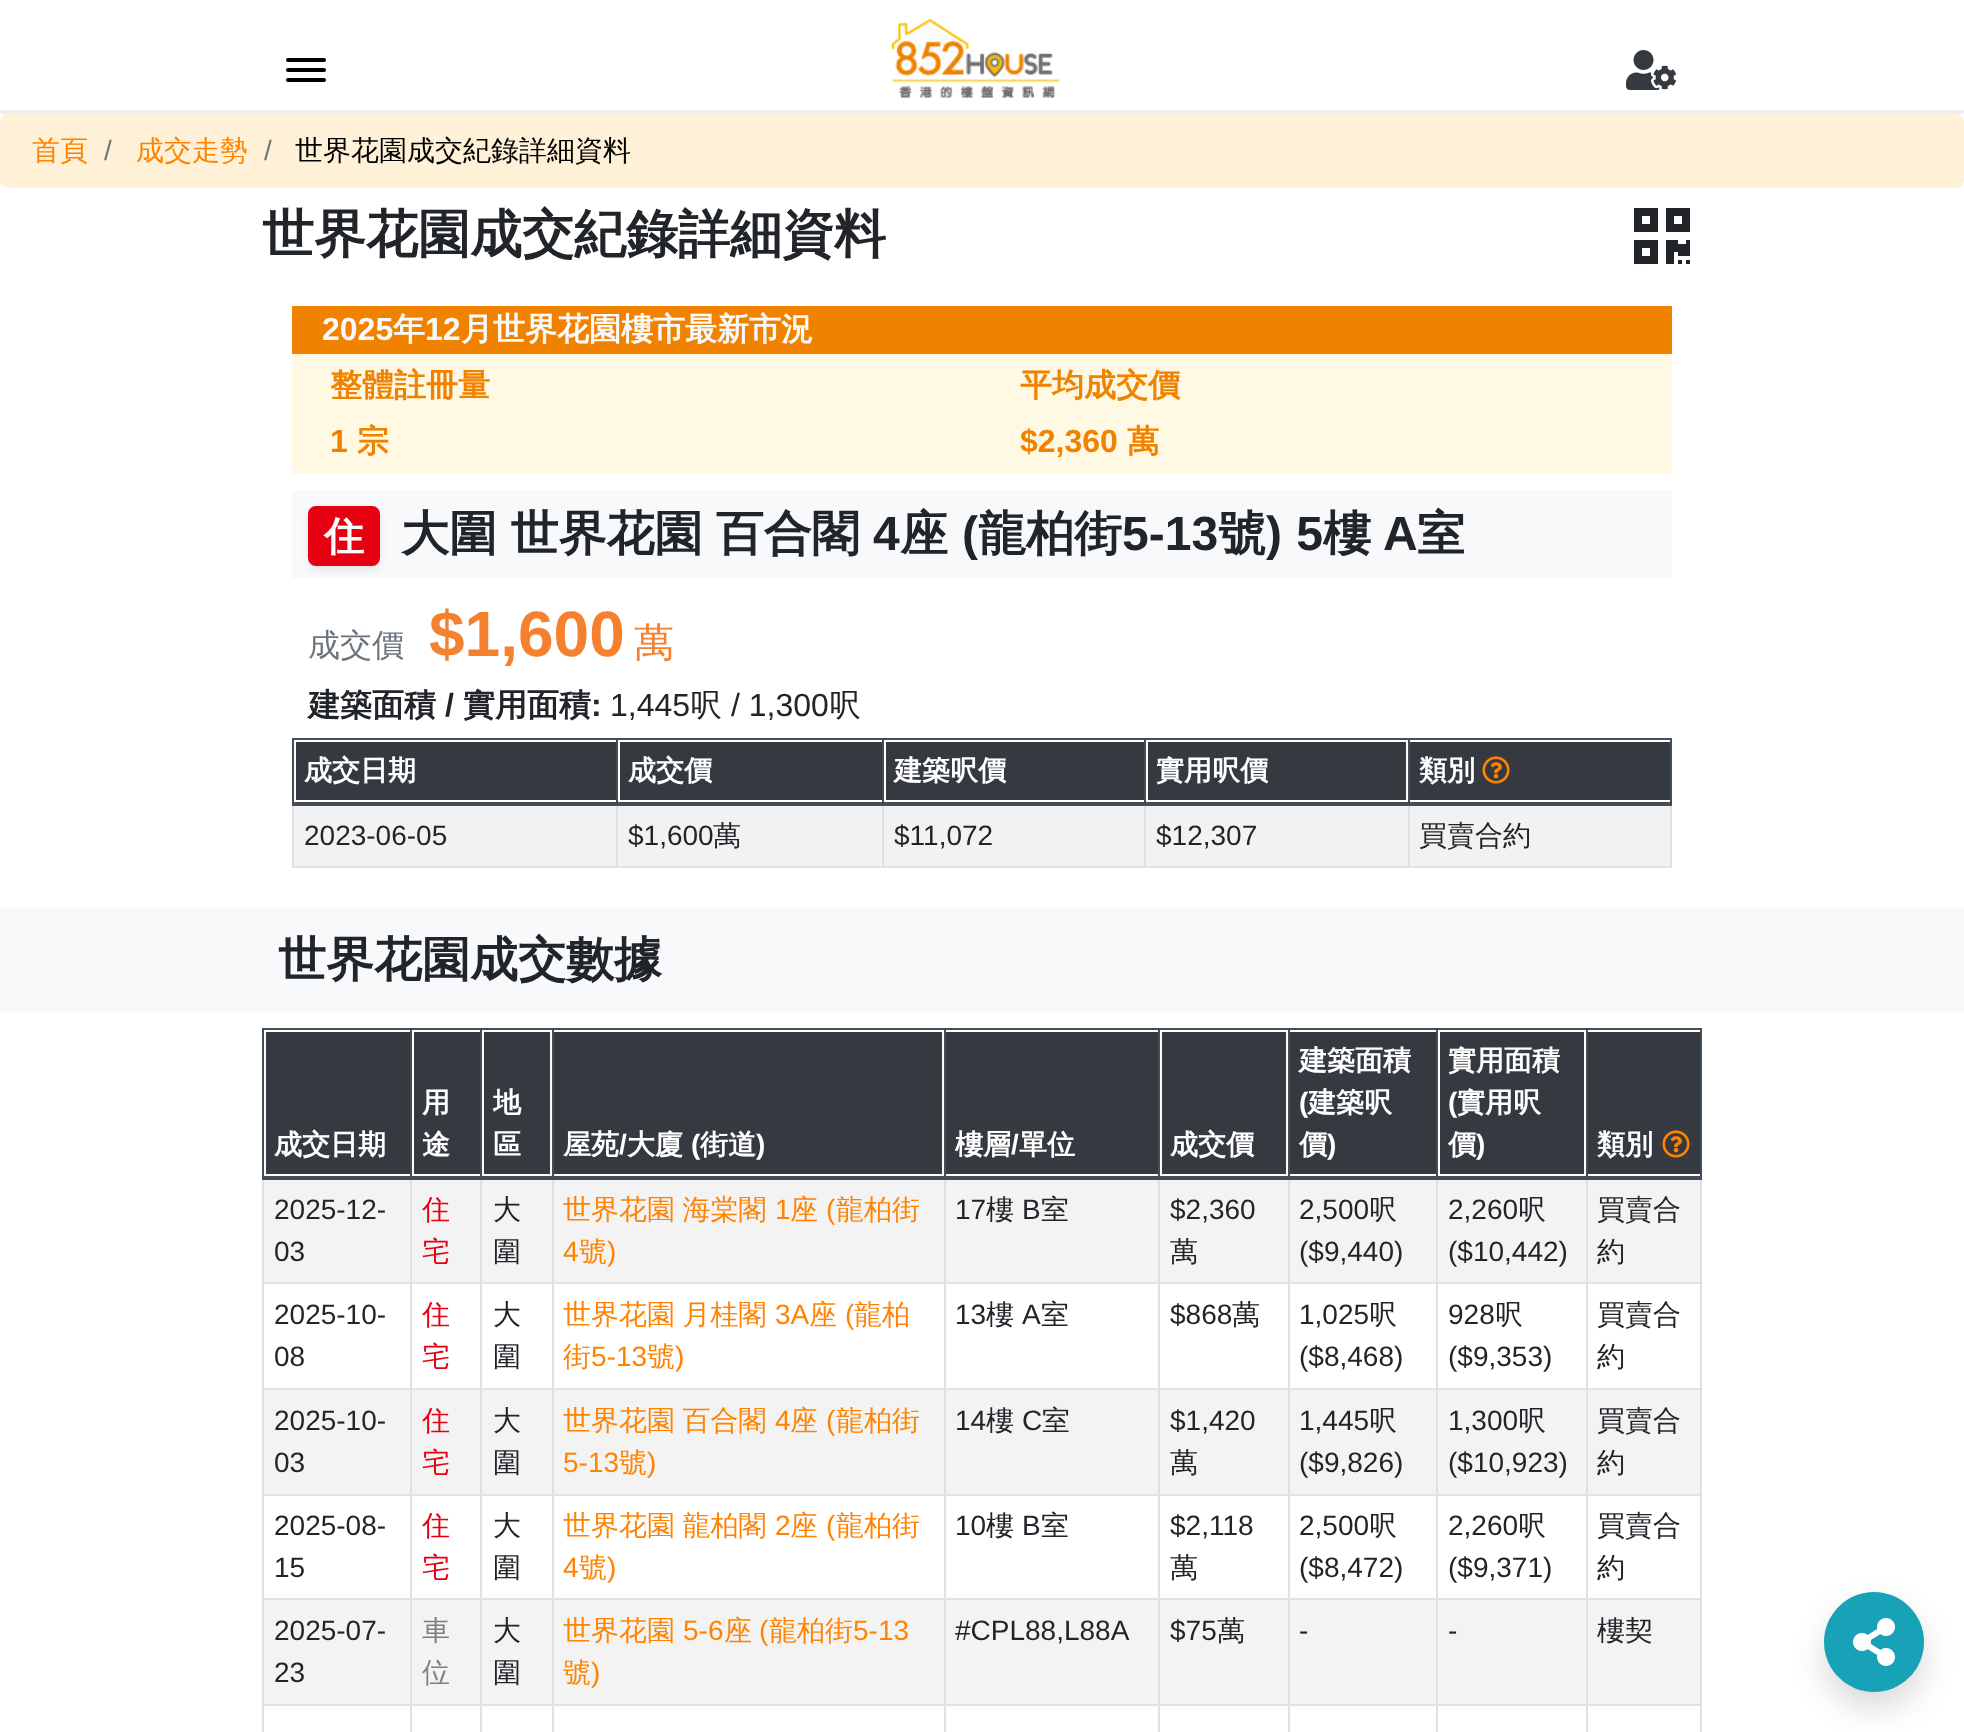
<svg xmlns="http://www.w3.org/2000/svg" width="1964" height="1732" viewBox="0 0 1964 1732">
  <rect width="100%" height="100%" fill="#fff"/>
  <path d="M0 110h1964v4H0z" fill="#eee"/>
  <rect x="286" y="68" width="40" height="4" rx="2" fill="#000"/>
  <rect x="286" y="58" width="40" height="4" rx="2" fill="#000"/>
  <rect x="286" y="78" width="40" height="4" rx="2" fill="#000"/>
  <image x="891" y="19" width="169" height="79" href="img/1.png"/>
  <image x="1626" y="50" width="50" height="40" href="img/2.png"/>
  <rect y="114" width="1964" height="74" rx="8" fill="#fff1d7"/>
  <image x="1634" y="208" width="56" height="56" href="img/3.png"/>
  <path d="M292 306h1380v48H292z" fill="#f08200"/>
  <path d="M292 354h1380v120H292z" fill="#fff8e2"/>
  <path d="M292 490h1380v88H292z" fill="#f8f9fa"/>
  <rect x="308" y="510" width="72" height="60" rx="8" fill="#00000012" filter="blur(4px)"/>
  <rect x="308" y="506" width="72" height="60" rx="8" fill="#e70012"/>
  <path d="M296 742h320v58H296z" fill="#343a40"/>
  <path d="M1408 738h264v2H1408z" fill="#454d55"/>
  <path d="M294 806h1376v60H294z" fill="#f2f2f2"/>
  <path d="M1670 802h2v66H1670z" fill="#dee2e6"/>
  <path d="M1408 866h264v2H1408z" fill="#dee2e6"/>
  <path d="M1408 802h2v66H1408z" fill="#dee2e6"/>
  <path d="M1408 738h2v66H1408z" fill="#454d55"/>
  <path d="M1144 738h266v2H1144z" fill="#454d55"/>
  <path d="M1144 866h266v2H1144z" fill="#dee2e6"/>
  <path d="M1144 802h2v66H1144z" fill="#dee2e6"/>
  <path d="M1144 738h2v66H1144z" fill="#454d55"/>
  <path d="M882 738h264v2H882z" fill="#454d55"/>
  <path d="M882 866h264v2H882z" fill="#dee2e6"/>
  <path d="M882 802h2v66H882z" fill="#dee2e6"/>
  <path d="M882 738h2v66H882z" fill="#454d55"/>
  <path d="M616 738h268v2H616z" fill="#454d55"/>
  <path d="M616 866h268v2H616z" fill="#dee2e6"/>
  <path d="M616 802h2v66H616z" fill="#dee2e6"/>
  <path d="M616 738h2v66H616z" fill="#454d55"/>
  <path d="M292 738h326v2H292z" fill="#454d55"/>
  <path d="M292 866h326v2H292z" fill="#dee2e6"/>
  <path d="M292 802h2v66H292z" fill="#dee2e6"/>
  <path d="M292 738h2v66H292z" fill="#454d55"/>
  <path d="M620 742h262v58H620z" fill="#343a40"/>
  <path d="M886 742h258v58H886z" fill="#343a40"/>
  <path d="M1148 742h258v58H1148z" fill="#343a40"/>
  <path d="M1410 742h260v58H1410z" fill="#343a40"/>
  <path d="M1670 738h2v66H1670z" fill="#454d55"/>
  <path d="M292 802h1380v4H292z" fill="#454d55"/>
  <image x="1482" y="756" width="28" height="28" href="img/4.png"/>
  <path d="M0 908h1964v104H0z" fill="#f8f9fa"/>
  <path d="M266 1032h144v142H266z" fill="#343a40"/>
  <path d="M1586 1028h116v2H1586z" fill="#454d55"/>
  <path d="M264 1180h1436v102H264z" fill="#f3f3f3"/>
  <path d="M1586 1282h116v2H1586z" fill="#dee2e6"/>
  <path d="M1586 1388h116v2H1586z" fill="#dee2e6"/>
  <path d="M264 1390h1436v104H264z" fill="#f3f3f3"/>
  <path d="M1586 1494h116v2H1586z" fill="#dee2e6"/>
  <path d="M1586 1598h116v2H1586z" fill="#dee2e6"/>
  <path d="M264 1600h1436v104H264z" fill="#f3f3f3"/>
  <path d="M1586 1704h116v2H1586z" fill="#dee2e6"/>
  <path d="M1586 1704h2v28H1586z" fill="#dee2e6"/>
  <path d="M1436 1704h152v2H1436z" fill="#dee2e6"/>
  <path d="M1586 1598h2v108H1586z" fill="#dee2e6"/>
  <path d="M1436 1598h152v2H1436z" fill="#dee2e6"/>
  <path d="M1586 1494h2v106H1586z" fill="#dee2e6"/>
  <path d="M1436 1494h152v2H1436z" fill="#dee2e6"/>
  <path d="M1586 1388h2v108H1586z" fill="#dee2e6"/>
  <path d="M1436 1388h152v2H1436z" fill="#dee2e6"/>
  <path d="M1586 1282h2v108H1586z" fill="#dee2e6"/>
  <path d="M1436 1282h152v2H1436z" fill="#dee2e6"/>
  <path d="M1586 1176h2v108H1586z" fill="#dee2e6"/>
  <path d="M1586 1028h2v150H1586z" fill="#454d55"/>
  <path d="M1436 1028h152v2H1436z" fill="#454d55"/>
  <path d="M1436 1704h2v28H1436z" fill="#dee2e6"/>
  <path d="M1288 1704h150v2H1288z" fill="#dee2e6"/>
  <path d="M1436 1598h2v108H1436z" fill="#dee2e6"/>
  <path d="M1288 1598h150v2H1288z" fill="#dee2e6"/>
  <path d="M1436 1494h2v106H1436z" fill="#dee2e6"/>
  <path d="M1288 1494h150v2H1288z" fill="#dee2e6"/>
  <path d="M1436 1388h2v108H1436z" fill="#dee2e6"/>
  <path d="M1288 1388h150v2H1288z" fill="#dee2e6"/>
  <path d="M1436 1282h2v108H1436z" fill="#dee2e6"/>
  <path d="M1288 1282h150v2H1288z" fill="#dee2e6"/>
  <path d="M1436 1176h2v108H1436z" fill="#dee2e6"/>
  <path d="M1436 1028h2v150H1436z" fill="#454d55"/>
  <path d="M1288 1028h150v2H1288z" fill="#454d55"/>
  <path d="M1288 1704h2v28H1288z" fill="#dee2e6"/>
  <path d="M1158 1704h132v2H1158z" fill="#dee2e6"/>
  <path d="M1288 1598h2v108H1288z" fill="#dee2e6"/>
  <path d="M1158 1598h132v2H1158z" fill="#dee2e6"/>
  <path d="M1288 1494h2v106H1288z" fill="#dee2e6"/>
  <path d="M1158 1494h132v2H1158z" fill="#dee2e6"/>
  <path d="M1288 1388h2v108H1288z" fill="#dee2e6"/>
  <path d="M1158 1388h132v2H1158z" fill="#dee2e6"/>
  <path d="M1288 1282h2v108H1288z" fill="#dee2e6"/>
  <path d="M1158 1282h132v2H1158z" fill="#dee2e6"/>
  <path d="M1288 1176h2v108H1288z" fill="#dee2e6"/>
  <path d="M1288 1028h2v150H1288z" fill="#454d55"/>
  <path d="M1158 1028h132v2H1158z" fill="#454d55"/>
  <path d="M1158 1704h2v28H1158z" fill="#dee2e6"/>
  <path d="M944 1704h216v2H944z" fill="#dee2e6"/>
  <path d="M1158 1598h2v108H1158z" fill="#dee2e6"/>
  <path d="M944 1598h216v2H944z" fill="#dee2e6"/>
  <path d="M1158 1494h2v106H1158z" fill="#dee2e6"/>
  <path d="M944 1494h216v2H944z" fill="#dee2e6"/>
  <path d="M1158 1388h2v108H1158z" fill="#dee2e6"/>
  <path d="M944 1388h216v2H944z" fill="#dee2e6"/>
  <path d="M1158 1282h2v108H1158z" fill="#dee2e6"/>
  <path d="M944 1282h216v2H944z" fill="#dee2e6"/>
  <path d="M1158 1176h2v108H1158z" fill="#dee2e6"/>
  <path d="M1158 1028h2v150H1158z" fill="#454d55"/>
  <path d="M944 1028h216v2H944z" fill="#454d55"/>
  <path d="M944 1704h2v28H944z" fill="#dee2e6"/>
  <path d="M552 1704h394v2H552z" fill="#dee2e6"/>
  <path d="M944 1598h2v108H944z" fill="#dee2e6"/>
  <path d="M552 1598h394v2H552z" fill="#dee2e6"/>
  <path d="M944 1494h2v106H944z" fill="#dee2e6"/>
  <path d="M552 1494h394v2H552z" fill="#dee2e6"/>
  <path d="M944 1388h2v108H944z" fill="#dee2e6"/>
  <path d="M552 1388h394v2H552z" fill="#dee2e6"/>
  <path d="M944 1282h2v108H944z" fill="#dee2e6"/>
  <path d="M552 1282h394v2H552z" fill="#dee2e6"/>
  <path d="M944 1176h2v108H944z" fill="#dee2e6"/>
  <path d="M944 1028h2v150H944z" fill="#454d55"/>
  <path d="M552 1028h394v2H552z" fill="#454d55"/>
  <path d="M552 1704h2v28H552z" fill="#dee2e6"/>
  <path d="M480 1704h74v2H480z" fill="#dee2e6"/>
  <path d="M552 1598h2v108H552z" fill="#dee2e6"/>
  <path d="M480 1598h74v2H480z" fill="#dee2e6"/>
  <path d="M552 1494h2v106H552z" fill="#dee2e6"/>
  <path d="M480 1494h74v2H480z" fill="#dee2e6"/>
  <path d="M552 1388h2v108H552z" fill="#dee2e6"/>
  <path d="M480 1388h74v2H480z" fill="#dee2e6"/>
  <path d="M552 1282h2v108H552z" fill="#dee2e6"/>
  <path d="M480 1282h74v2H480z" fill="#dee2e6"/>
  <path d="M552 1176h2v108H552z" fill="#dee2e6"/>
  <path d="M552 1028h2v150H552z" fill="#454d55"/>
  <path d="M480 1028h74v2H480z" fill="#454d55"/>
  <path d="M480 1704h2v28H480z" fill="#dee2e6"/>
  <path d="M410 1704h72v2H410z" fill="#dee2e6"/>
  <path d="M480 1598h2v108H480z" fill="#dee2e6"/>
  <path d="M410 1598h72v2H410z" fill="#dee2e6"/>
  <path d="M480 1494h2v106H480z" fill="#dee2e6"/>
  <path d="M410 1494h72v2H410z" fill="#dee2e6"/>
  <path d="M480 1388h2v108H480z" fill="#dee2e6"/>
  <path d="M410 1388h72v2H410z" fill="#dee2e6"/>
  <path d="M480 1282h2v108H480z" fill="#dee2e6"/>
  <path d="M410 1282h72v2H410z" fill="#dee2e6"/>
  <path d="M480 1176h2v108H480z" fill="#dee2e6"/>
  <path d="M480 1028h2v150H480z" fill="#454d55"/>
  <path d="M410 1028h72v2H410z" fill="#454d55"/>
  <path d="M410 1704h2v28H410z" fill="#dee2e6"/>
  <path d="M262 1704h150v2H262z" fill="#dee2e6"/>
  <path d="M410 1598h2v108H410z" fill="#dee2e6"/>
  <path d="M262 1598h150v2H262z" fill="#dee2e6"/>
  <path d="M410 1494h2v106H410z" fill="#dee2e6"/>
  <path d="M262 1494h150v2H262z" fill="#dee2e6"/>
  <path d="M410 1388h2v108H410z" fill="#dee2e6"/>
  <path d="M262 1388h150v2H262z" fill="#dee2e6"/>
  <path d="M410 1282h2v108H410z" fill="#dee2e6"/>
  <path d="M262 1282h150v2H262z" fill="#dee2e6"/>
  <path d="M410 1176h2v108H410z" fill="#dee2e6"/>
  <path d="M410 1028h2v150H410z" fill="#454d55"/>
  <path d="M262 1028h150v2H262z" fill="#454d55"/>
  <path d="M262 1704h2v28H262z" fill="#dee2e6"/>
  <path d="M262 1598h2v108H262z" fill="#dee2e6"/>
  <path d="M262 1494h2v106H262z" fill="#dee2e6"/>
  <path d="M262 1388h2v108H262z" fill="#dee2e6"/>
  <path d="M262 1176h2v214H262z" fill="#dee2e6"/>
  <path d="M262 1028h2v150H262z" fill="#454d55"/>
  <path d="M414 1032h66v142H414z" fill="#343a40"/>
  <path d="M484 1032h66v142H484z" fill="#343a40"/>
  <path d="M554 1032h388v142H554z" fill="#343a40"/>
  <path d="M946 1032h212v142H946z" fill="#343a40"/>
  <path d="M1162 1032h124v142H1162z" fill="#343a40"/>
  <path d="M1290 1032h146v142H1290z" fill="#343a40"/>
  <path d="M1440 1032h144v142H1440z" fill="#343a40"/>
  <path d="M1588 1032h112v142H1588z" fill="#343a40"/>
  <path d="M1700 1704h2v28H1700z" fill="#dee2e6"/>
  <path d="M1700 1598h2v108H1700z" fill="#dee2e6"/>
  <path d="M1700 1494h2v106H1700z" fill="#dee2e6"/>
  <path d="M1700 1388h2v108H1700z" fill="#dee2e6"/>
  <path d="M1700 1176h2v214H1700z" fill="#dee2e6"/>
  <path d="M1700 1028h2v150H1700z" fill="#454d55"/>
  <path d="M262 1176h1440v4H262z" fill="#454d55"/>
  <image x="1662" y="1130" width="28" height="28" href="img/4.png"/>
  <rect x="1824" y="1608" width="100" height="100" rx="50" fill="#00000026" filter="blur(16px)"/>
  <circle cx="1874" cy="1642" r="50" fill="#17a2b8"/>
  <image x="1853" y="1618" width="42" height="48" href="img/5.png"/>
  <text x="32" y="160" font-family="WenQuanYi Zen Hei" font-size="28" font-weight="500" fill="#ff8300">首頁</text>
  <text x="104" y="160" font-family="Liberation Sans" font-size="28" fill="#6c757d">/</text>
  <text x="136" y="160" font-family="WenQuanYi Zen Hei" font-size="28" font-weight="500" fill="#ff8300">成交走勢</text>
  <text x="264" y="160" font-family="Liberation Sans" font-size="28" fill="#6c757d">/</text>
  <text x="295" y="160" font-family="WenQuanYi Zen Hei" font-size="28" font-weight="500" fill="#000">世界花園成交紀錄詳細資料</text>
  <text x="262" y="252" font-family="WenQuanYi Zen Hei" font-size="52" font-weight="bold" fill="#212529">世界花園成交紀錄詳細資料</text>
  <text x="322" y="340" font-family="Liberation Sans" font-size="32" font-weight="bold" fill="#f8f9fa">2025</text>
  <text x="393" y="340" font-family="WenQuanYi Zen Hei" font-size="32" font-weight="bold" fill="#f8f9fa">年</text>
  <text x="425" y="340" font-family="Liberation Sans" font-size="32" font-weight="bold" fill="#f8f9fa">12</text>
  <text x="461" y="340" font-family="WenQuanYi Zen Hei" font-size="32" font-weight="bold" fill="#f8f9fa">月世界花園樓市最新市況</text>
  <text x="330" y="396" font-family="WenQuanYi Zen Hei" font-size="32" font-weight="bold" fill="#f08200">整體註冊量</text>
  <text x="330" y="452" font-family="Liberation Sans" font-size="32" font-weight="bold" fill="#f08200">1</text>
  <g font-family="WenQuanYi Zen Hei" font-size="32" font-weight="bold" fill="#f08200">
    <text x="357" y="452">宗</text>
    <text x="1020" y="396">平均成交價</text>
  </g>
  <text x="1020" y="452" font-family="Liberation Sans" font-size="32" font-weight="bold" fill="#f08200">$2,360</text>
  <text x="1127" y="452" font-family="WenQuanYi Zen Hei" font-size="32" font-weight="bold" fill="#f08200">萬</text>
  <text x="324" y="550" font-family="WenQuanYi Zen Hei" font-size="40" font-weight="bold" fill="#fff">住</text>
  <text x="401" y="550" word-spacing="-1" font-family="WenQuanYi Zen Hei" font-size="48" font-weight="bold" fill="#212529">大圍 世界花園 百合閣</text>
  <text x="873" y="550" font-family="Liberation Sans" font-size="48" font-weight="bold" fill="#212529">4</text>
  <text x="900" y="550" font-family="WenQuanYi Zen Hei" font-size="48" font-weight="bold" fill="#212529">座</text>
  <text x="962" y="550" font-family="Liberation Sans" font-size="48" font-weight="bold" fill="#212529">(</text>
  <text x="978" y="550" font-family="WenQuanYi Zen Hei" font-size="48" font-weight="bold" fill="#212529">龍柏街</text>
  <text x="1122" y="550" font-family="Liberation Sans" font-size="48" font-weight="bold" fill="#212529">5-13</text>
  <text x="1218" y="550" font-family="WenQuanYi Zen Hei" font-size="48" font-weight="bold" fill="#212529">號</text>
  <text x="1266" y="550" word-spacing="1" font-family="Liberation Sans" font-size="48" font-weight="bold" fill="#212529">) 5</text>
  <text x="1323" y="550" font-family="WenQuanYi Zen Hei" font-size="48" font-weight="bold" fill="#212529">樓</text>
  <text x="1383" y="550" font-family="Liberation Sans" font-size="48" font-weight="bold" fill="#212529">A</text>
  <text x="1417" y="550" font-family="WenQuanYi Zen Hei" font-size="48" font-weight="bold" fill="#212529">室</text>
  <text x="308" y="656" font-family="WenQuanYi Zen Hei" font-size="32" font-weight="500" fill="#6c757d">成交價</text>
  <text x="429" y="656" font-family="Liberation Sans" font-size="64" font-weight="bold" fill="#f5812e">$1,600</text>
  <text x="634" y="656" font-family="WenQuanYi Zen Hei" font-size="40" font-weight="500" fill="#f5812e">萬</text>
  <text x="308" y="716" font-family="WenQuanYi Zen Hei" font-size="32" font-weight="bold" fill="#212529">建築面積</text>
  <text x="445" y="716" font-family="Liberation Sans" font-size="32" font-weight="bold" fill="#212529">/</text>
  <text x="463" y="716" font-family="WenQuanYi Zen Hei" font-size="32" font-weight="bold" fill="#212529">實用面積</text>
  <text x="591" y="716" font-family="Liberation Sans" font-size="32" font-weight="bold" fill="#212529">:</text>
  <text x="610" y="716" font-family="Liberation Sans" font-size="32" fill="#212529">1,445</text>
  <text x="690" y="716" font-family="WenQuanYi Zen Hei" font-size="32" font-weight="500" fill="#212529">呎</text>
  <text x="731" y="716" font-family="Liberation Sans" font-size="32" fill="#212529">/ 1,300</text>
  <text x="829" y="716" font-family="WenQuanYi Zen Hei" font-size="32" font-weight="500" fill="#212529">呎</text>
  <g font-family="WenQuanYi Zen Hei" font-size="28" font-weight="bold" fill="#fff">
    <text x="304" y="780">成交日期</text>
    <text x="628" y="780">成交價</text>
    <text x="894" y="780">建築呎價</text>
    <text x="1156" y="780">實用呎價</text>
    <text x="1419" y="780">類別</text>
  </g>
  <g font-family="Liberation Sans" font-size="28" fill="#212529">
    <text x="304" y="845">2023-06-05</text>
    <text x="628" y="845">$1,600</text>
  </g>
  <text x="713" y="845" font-family="WenQuanYi Zen Hei" font-size="28" font-weight="500" fill="#212529">萬</text>
  <g font-family="Liberation Sans" font-size="28" fill="#212529">
    <text x="894" y="845">$11,072</text>
    <text x="1156" y="845">$12,307</text>
  </g>
  <text x="1419" y="845" font-family="WenQuanYi Zen Hei" font-size="28" font-weight="500" fill="#212529">買賣合約</text>
  <text x="278" y="976" font-family="WenQuanYi Zen Hei" font-size="48" font-weight="bold" fill="#212529">世界花園成交數據</text>
  <g font-family="WenQuanYi Zen Hei" font-size="28" font-weight="bold" fill="#fff">
    <text x="274" y="1154">成交日期</text>
    <text x="422" y="1112">用</text>
    <text x="422" y="1154">途</text>
    <text x="493" y="1112">地</text>
    <text x="493" y="1154">區</text>
    <text x="563" y="1154">屋苑</text>
  </g>
  <text x="619" y="1154" font-family="Liberation Sans" font-size="28" font-weight="bold" fill="#fff">/</text>
  <text x="627" y="1154" font-family="WenQuanYi Zen Hei" font-size="28" font-weight="bold" fill="#fff">大廈</text>
  <text x="691" y="1154" font-family="Liberation Sans" font-size="28" font-weight="bold" fill="#fff">(</text>
  <text x="700" y="1154" font-family="WenQuanYi Zen Hei" font-size="28" font-weight="bold" fill="#fff">街道</text>
  <text x="756" y="1154" font-family="Liberation Sans" font-size="28" font-weight="bold" fill="#fff">)</text>
  <text x="955" y="1154" font-family="WenQuanYi Zen Hei" font-size="28" font-weight="bold" fill="#fff">樓層</text>
  <text x="1011" y="1154" font-family="Liberation Sans" font-size="28" font-weight="bold" fill="#fff">/</text>
  <g font-family="WenQuanYi Zen Hei" font-size="28" font-weight="bold" fill="#fff">
    <text x="1019" y="1154">單位</text>
    <text x="1170" y="1154">成交價</text>
    <text x="1299" y="1070">建築面積</text>
  </g>
  <text x="1299" y="1112" font-family="Liberation Sans" font-size="28" font-weight="bold" fill="#fff">(</text>
  <g font-family="WenQuanYi Zen Hei" font-size="28" font-weight="bold" fill="#fff">
    <text x="1308" y="1112">建築呎</text>
    <text x="1299" y="1154">價</text>
  </g>
  <text x="1327" y="1154" font-family="Liberation Sans" font-size="28" font-weight="bold" fill="#fff">)</text>
  <text x="1448" y="1070" font-family="WenQuanYi Zen Hei" font-size="28" font-weight="bold" fill="#fff">實用面積</text>
  <text x="1448" y="1112" font-family="Liberation Sans" font-size="28" font-weight="bold" fill="#fff">(</text>
  <g font-family="WenQuanYi Zen Hei" font-size="28" font-weight="bold" fill="#fff">
    <text x="1457" y="1112">實用呎</text>
    <text x="1448" y="1154">價</text>
  </g>
  <text x="1476" y="1154" font-family="Liberation Sans" font-size="28" font-weight="bold" fill="#fff">)</text>
  <text x="1597" y="1154" font-family="WenQuanYi Zen Hei" font-size="28" font-weight="bold" fill="#fff">類別</text>
  <g font-family="Liberation Sans" font-size="28" fill="#212529">
    <text x="274" y="1219">2025-12-</text>
    <text x="274" y="1261">03</text>
  </g>
  <g font-family="WenQuanYi Zen Hei" font-size="28" font-weight="500" fill="#e70012">
    <text x="422" y="1219">住</text>
    <text x="422" y="1261">宅</text>
  </g>
  <g font-family="WenQuanYi Zen Hei" font-size="28" font-weight="500" fill="#212529">
    <text x="493" y="1219">大</text>
    <text x="493" y="1261">圍</text>
  </g>
  <text x="563" y="1219" word-spacing="-1" font-family="WenQuanYi Zen Hei" font-size="28" font-weight="500" fill="#ff8300">世界花園 海棠閣</text>
  <text x="775" y="1219" font-family="Liberation Sans" font-size="28" fill="#ff8300">1</text>
  <text x="790" y="1219" font-family="WenQuanYi Zen Hei" font-size="28" font-weight="500" fill="#ff8300">座</text>
  <text x="826" y="1219" font-family="Liberation Sans" font-size="28" fill="#ff8300">(</text>
  <text x="836" y="1219" font-family="WenQuanYi Zen Hei" font-size="28" font-weight="500" fill="#ff8300">龍柏街</text>
  <text x="563" y="1261" font-family="Liberation Sans" font-size="28" fill="#ff8300">4</text>
  <text x="579" y="1261" font-family="WenQuanYi Zen Hei" font-size="28" font-weight="500" fill="#ff8300">號</text>
  <text x="607" y="1261" font-family="Liberation Sans" font-size="28" fill="#ff8300">)</text>
  <text x="955" y="1219" font-family="Liberation Sans" font-size="28" fill="#212529">17</text>
  <text x="986" y="1219" font-family="WenQuanYi Zen Hei" font-size="28" font-weight="500" fill="#212529">樓</text>
  <text x="1022" y="1219" font-family="Liberation Sans" font-size="28" fill="#212529">B</text>
  <text x="1041" y="1219" font-family="WenQuanYi Zen Hei" font-size="28" font-weight="500" fill="#212529">室</text>
  <text x="1170" y="1219" font-family="Liberation Sans" font-size="28" fill="#212529">$2,360</text>
  <text x="1170" y="1261" font-family="WenQuanYi Zen Hei" font-size="28" font-weight="500" fill="#212529">萬</text>
  <text x="1299" y="1219" font-family="Liberation Sans" font-size="28" fill="#212529">2,500</text>
  <text x="1369" y="1219" font-family="WenQuanYi Zen Hei" font-size="28" font-weight="500" fill="#212529">呎</text>
  <g font-family="Liberation Sans" font-size="28" fill="#212529">
    <text x="1299" y="1261">($9,440)</text>
    <text x="1448" y="1219">2,260</text>
  </g>
  <text x="1518" y="1219" font-family="WenQuanYi Zen Hei" font-size="28" font-weight="500" fill="#212529">呎</text>
  <text x="1448" y="1261" font-family="Liberation Sans" font-size="28" fill="#212529">($10,442)</text>
  <g font-family="WenQuanYi Zen Hei" font-size="28" font-weight="500" fill="#212529">
    <text x="1597" y="1219">買賣合</text>
    <text x="1597" y="1261">約</text>
  </g>
  <g font-family="Liberation Sans" font-size="28" fill="#212529">
    <text x="274" y="1324">2025-10-</text>
    <text x="274" y="1366">08</text>
  </g>
  <g font-family="WenQuanYi Zen Hei" font-size="28" font-weight="500" fill="#e70012">
    <text x="422" y="1324">住</text>
    <text x="422" y="1366">宅</text>
  </g>
  <g font-family="WenQuanYi Zen Hei" font-size="28" font-weight="500" fill="#212529">
    <text x="493" y="1324">大</text>
    <text x="493" y="1366">圍</text>
  </g>
  <text x="563" y="1324" word-spacing="-1" font-family="WenQuanYi Zen Hei" font-size="28" font-weight="500" fill="#ff8300">世界花園 月桂閣</text>
  <text x="775" y="1324" font-family="Liberation Sans" font-size="28" fill="#ff8300">3A</text>
  <text x="809" y="1324" font-family="WenQuanYi Zen Hei" font-size="28" font-weight="500" fill="#ff8300">座</text>
  <text x="845" y="1324" font-family="Liberation Sans" font-size="28" fill="#ff8300">(</text>
  <g font-family="WenQuanYi Zen Hei" font-size="28" font-weight="500" fill="#ff8300">
    <text x="854" y="1324">龍柏</text>
    <text x="563" y="1366">街</text>
  </g>
  <text x="591" y="1366" font-family="Liberation Sans" font-size="28" fill="#ff8300">5-13</text>
  <text x="647" y="1366" font-family="WenQuanYi Zen Hei" font-size="28" font-weight="500" fill="#ff8300">號</text>
  <text x="675" y="1366" font-family="Liberation Sans" font-size="28" fill="#ff8300">)</text>
  <text x="955" y="1324" font-family="Liberation Sans" font-size="28" fill="#212529">13</text>
  <text x="986" y="1324" font-family="WenQuanYi Zen Hei" font-size="28" font-weight="500" fill="#212529">樓</text>
  <text x="1022" y="1324" font-family="Liberation Sans" font-size="28" fill="#212529">A</text>
  <text x="1041" y="1324" font-family="WenQuanYi Zen Hei" font-size="28" font-weight="500" fill="#212529">室</text>
  <text x="1170" y="1324" font-family="Liberation Sans" font-size="28" fill="#212529">$868</text>
  <text x="1232" y="1324" font-family="WenQuanYi Zen Hei" font-size="28" font-weight="500" fill="#212529">萬</text>
  <text x="1299" y="1324" font-family="Liberation Sans" font-size="28" fill="#212529">1,025</text>
  <text x="1369" y="1324" font-family="WenQuanYi Zen Hei" font-size="28" font-weight="500" fill="#212529">呎</text>
  <g font-family="Liberation Sans" font-size="28" fill="#212529">
    <text x="1299" y="1366">($8,468)</text>
    <text x="1448" y="1324">928</text>
  </g>
  <text x="1495" y="1324" font-family="WenQuanYi Zen Hei" font-size="28" font-weight="500" fill="#212529">呎</text>
  <text x="1448" y="1366" font-family="Liberation Sans" font-size="28" fill="#212529">($9,353)</text>
  <g font-family="WenQuanYi Zen Hei" font-size="28" font-weight="500" fill="#212529">
    <text x="1597" y="1324">買賣合</text>
    <text x="1597" y="1366">約</text>
  </g>
  <g font-family="Liberation Sans" font-size="28" fill="#212529">
    <text x="274" y="1430">2025-10-</text>
    <text x="274" y="1472">03</text>
  </g>
  <g font-family="WenQuanYi Zen Hei" font-size="28" font-weight="500" fill="#e70012">
    <text x="422" y="1430">住</text>
    <text x="422" y="1472">宅</text>
  </g>
  <g font-family="WenQuanYi Zen Hei" font-size="28" font-weight="500" fill="#212529">
    <text x="493" y="1430">大</text>
    <text x="493" y="1472">圍</text>
  </g>
  <text x="563" y="1430" word-spacing="-1" font-family="WenQuanYi Zen Hei" font-size="28" font-weight="500" fill="#ff8300">世界花園 百合閣</text>
  <text x="775" y="1430" font-family="Liberation Sans" font-size="28" fill="#ff8300">4</text>
  <text x="790" y="1430" font-family="WenQuanYi Zen Hei" font-size="28" font-weight="500" fill="#ff8300">座</text>
  <text x="826" y="1430" font-family="Liberation Sans" font-size="28" fill="#ff8300">(</text>
  <text x="836" y="1430" font-family="WenQuanYi Zen Hei" font-size="28" font-weight="500" fill="#ff8300">龍柏街</text>
  <text x="563" y="1472" font-family="Liberation Sans" font-size="28" fill="#ff8300">5-13</text>
  <text x="619" y="1472" font-family="WenQuanYi Zen Hei" font-size="28" font-weight="500" fill="#ff8300">號</text>
  <text x="647" y="1472" font-family="Liberation Sans" font-size="28" fill="#ff8300">)</text>
  <text x="955" y="1430" font-family="Liberation Sans" font-size="28" fill="#212529">14</text>
  <text x="986" y="1430" font-family="WenQuanYi Zen Hei" font-size="28" font-weight="500" fill="#212529">樓</text>
  <text x="1022" y="1430" font-family="Liberation Sans" font-size="28" fill="#212529">C</text>
  <text x="1042" y="1430" font-family="WenQuanYi Zen Hei" font-size="28" font-weight="500" fill="#212529">室</text>
  <text x="1170" y="1430" font-family="Liberation Sans" font-size="28" fill="#212529">$1,420</text>
  <text x="1170" y="1472" font-family="WenQuanYi Zen Hei" font-size="28" font-weight="500" fill="#212529">萬</text>
  <text x="1299" y="1430" font-family="Liberation Sans" font-size="28" fill="#212529">1,445</text>
  <text x="1369" y="1430" font-family="WenQuanYi Zen Hei" font-size="28" font-weight="500" fill="#212529">呎</text>
  <g font-family="Liberation Sans" font-size="28" fill="#212529">
    <text x="1299" y="1472">($9,826)</text>
    <text x="1448" y="1430">1,300</text>
  </g>
  <text x="1518" y="1430" font-family="WenQuanYi Zen Hei" font-size="28" font-weight="500" fill="#212529">呎</text>
  <text x="1448" y="1472" font-family="Liberation Sans" font-size="28" fill="#212529">($10,923)</text>
  <g font-family="WenQuanYi Zen Hei" font-size="28" font-weight="500" fill="#212529">
    <text x="1597" y="1430">買賣合</text>
    <text x="1597" y="1472">約</text>
  </g>
  <g font-family="Liberation Sans" font-size="28" fill="#212529">
    <text x="274" y="1535">2025-08-</text>
    <text x="274" y="1577">15</text>
  </g>
  <g font-family="WenQuanYi Zen Hei" font-size="28" font-weight="500" fill="#e70012">
    <text x="422" y="1535">住</text>
    <text x="422" y="1577">宅</text>
  </g>
  <g font-family="WenQuanYi Zen Hei" font-size="28" font-weight="500" fill="#212529">
    <text x="493" y="1535">大</text>
    <text x="493" y="1577">圍</text>
  </g>
  <text x="563" y="1535" word-spacing="-1" font-family="WenQuanYi Zen Hei" font-size="28" font-weight="500" fill="#ff8300">世界花園 龍柏閣</text>
  <text x="775" y="1535" font-family="Liberation Sans" font-size="28" fill="#ff8300">2</text>
  <text x="790" y="1535" font-family="WenQuanYi Zen Hei" font-size="28" font-weight="500" fill="#ff8300">座</text>
  <text x="826" y="1535" font-family="Liberation Sans" font-size="28" fill="#ff8300">(</text>
  <text x="836" y="1535" font-family="WenQuanYi Zen Hei" font-size="28" font-weight="500" fill="#ff8300">龍柏街</text>
  <text x="563" y="1577" font-family="Liberation Sans" font-size="28" fill="#ff8300">4</text>
  <text x="579" y="1577" font-family="WenQuanYi Zen Hei" font-size="28" font-weight="500" fill="#ff8300">號</text>
  <text x="607" y="1577" font-family="Liberation Sans" font-size="28" fill="#ff8300">)</text>
  <text x="955" y="1535" font-family="Liberation Sans" font-size="28" fill="#212529">10</text>
  <text x="986" y="1535" font-family="WenQuanYi Zen Hei" font-size="28" font-weight="500" fill="#212529">樓</text>
  <text x="1022" y="1535" font-family="Liberation Sans" font-size="28" fill="#212529">B</text>
  <text x="1041" y="1535" font-family="WenQuanYi Zen Hei" font-size="28" font-weight="500" fill="#212529">室</text>
  <text x="1170" y="1535" font-family="Liberation Sans" font-size="28" fill="#212529">$2,118</text>
  <text x="1170" y="1577" font-family="WenQuanYi Zen Hei" font-size="28" font-weight="500" fill="#212529">萬</text>
  <text x="1299" y="1535" font-family="Liberation Sans" font-size="28" fill="#212529">2,500</text>
  <text x="1369" y="1535" font-family="WenQuanYi Zen Hei" font-size="28" font-weight="500" fill="#212529">呎</text>
  <g font-family="Liberation Sans" font-size="28" fill="#212529">
    <text x="1299" y="1577">($8,472)</text>
    <text x="1448" y="1535">2,260</text>
  </g>
  <text x="1518" y="1535" font-family="WenQuanYi Zen Hei" font-size="28" font-weight="500" fill="#212529">呎</text>
  <text x="1448" y="1577" font-family="Liberation Sans" font-size="28" fill="#212529">($9,371)</text>
  <g font-family="WenQuanYi Zen Hei" font-size="28" font-weight="500" fill="#212529">
    <text x="1597" y="1535">買賣合</text>
    <text x="1597" y="1577">約</text>
  </g>
  <g font-family="Liberation Sans" font-size="28" fill="#212529">
    <text x="274" y="1640">2025-07-</text>
    <text x="274" y="1682">23</text>
  </g>
  <g font-family="WenQuanYi Zen Hei" font-size="28" font-weight="500" fill="#808080">
    <text x="422" y="1640">車</text>
    <text x="422" y="1682">位</text>
  </g>
  <g font-family="WenQuanYi Zen Hei" font-size="28" font-weight="500" fill="#212529">
    <text x="493" y="1640">大</text>
    <text x="493" y="1682">圍</text>
  </g>
  <text x="563" y="1640" font-family="WenQuanYi Zen Hei" font-size="28" font-weight="500" fill="#ff8300">世界花園</text>
  <text x="683" y="1640" font-family="Liberation Sans" font-size="28" fill="#ff8300">5-6</text>
  <text x="724" y="1640" font-family="WenQuanYi Zen Hei" font-size="28" font-weight="500" fill="#ff8300">座</text>
  <text x="759" y="1640" font-family="Liberation Sans" font-size="28" fill="#ff8300">(</text>
  <text x="769" y="1640" font-family="WenQuanYi Zen Hei" font-size="28" font-weight="500" fill="#ff8300">龍柏街</text>
  <text x="853" y="1640" font-family="Liberation Sans" font-size="28" fill="#ff8300">5-13</text>
  <text x="563" y="1682" font-family="WenQuanYi Zen Hei" font-size="28" font-weight="500" fill="#ff8300">號</text>
  <text x="591" y="1682" font-family="Liberation Sans" font-size="28" fill="#ff8300">)</text>
  <g font-family="Liberation Sans" font-size="28" fill="#212529">
    <text x="955" y="1640">#CPL88,L88A</text>
    <text x="1170" y="1640">$75</text>
  </g>
  <text x="1217" y="1640" font-family="WenQuanYi Zen Hei" font-size="28" font-weight="500" fill="#212529">萬</text>
  <g font-family="Liberation Sans" font-size="28" fill="#212529">
    <text x="1299" y="1640">-</text>
    <text x="1448" y="1640">-</text>
  </g>
  <text x="1597" y="1640" font-family="WenQuanYi Zen Hei" font-size="28" font-weight="500" fill="#212529">樓契</text>
</svg>
